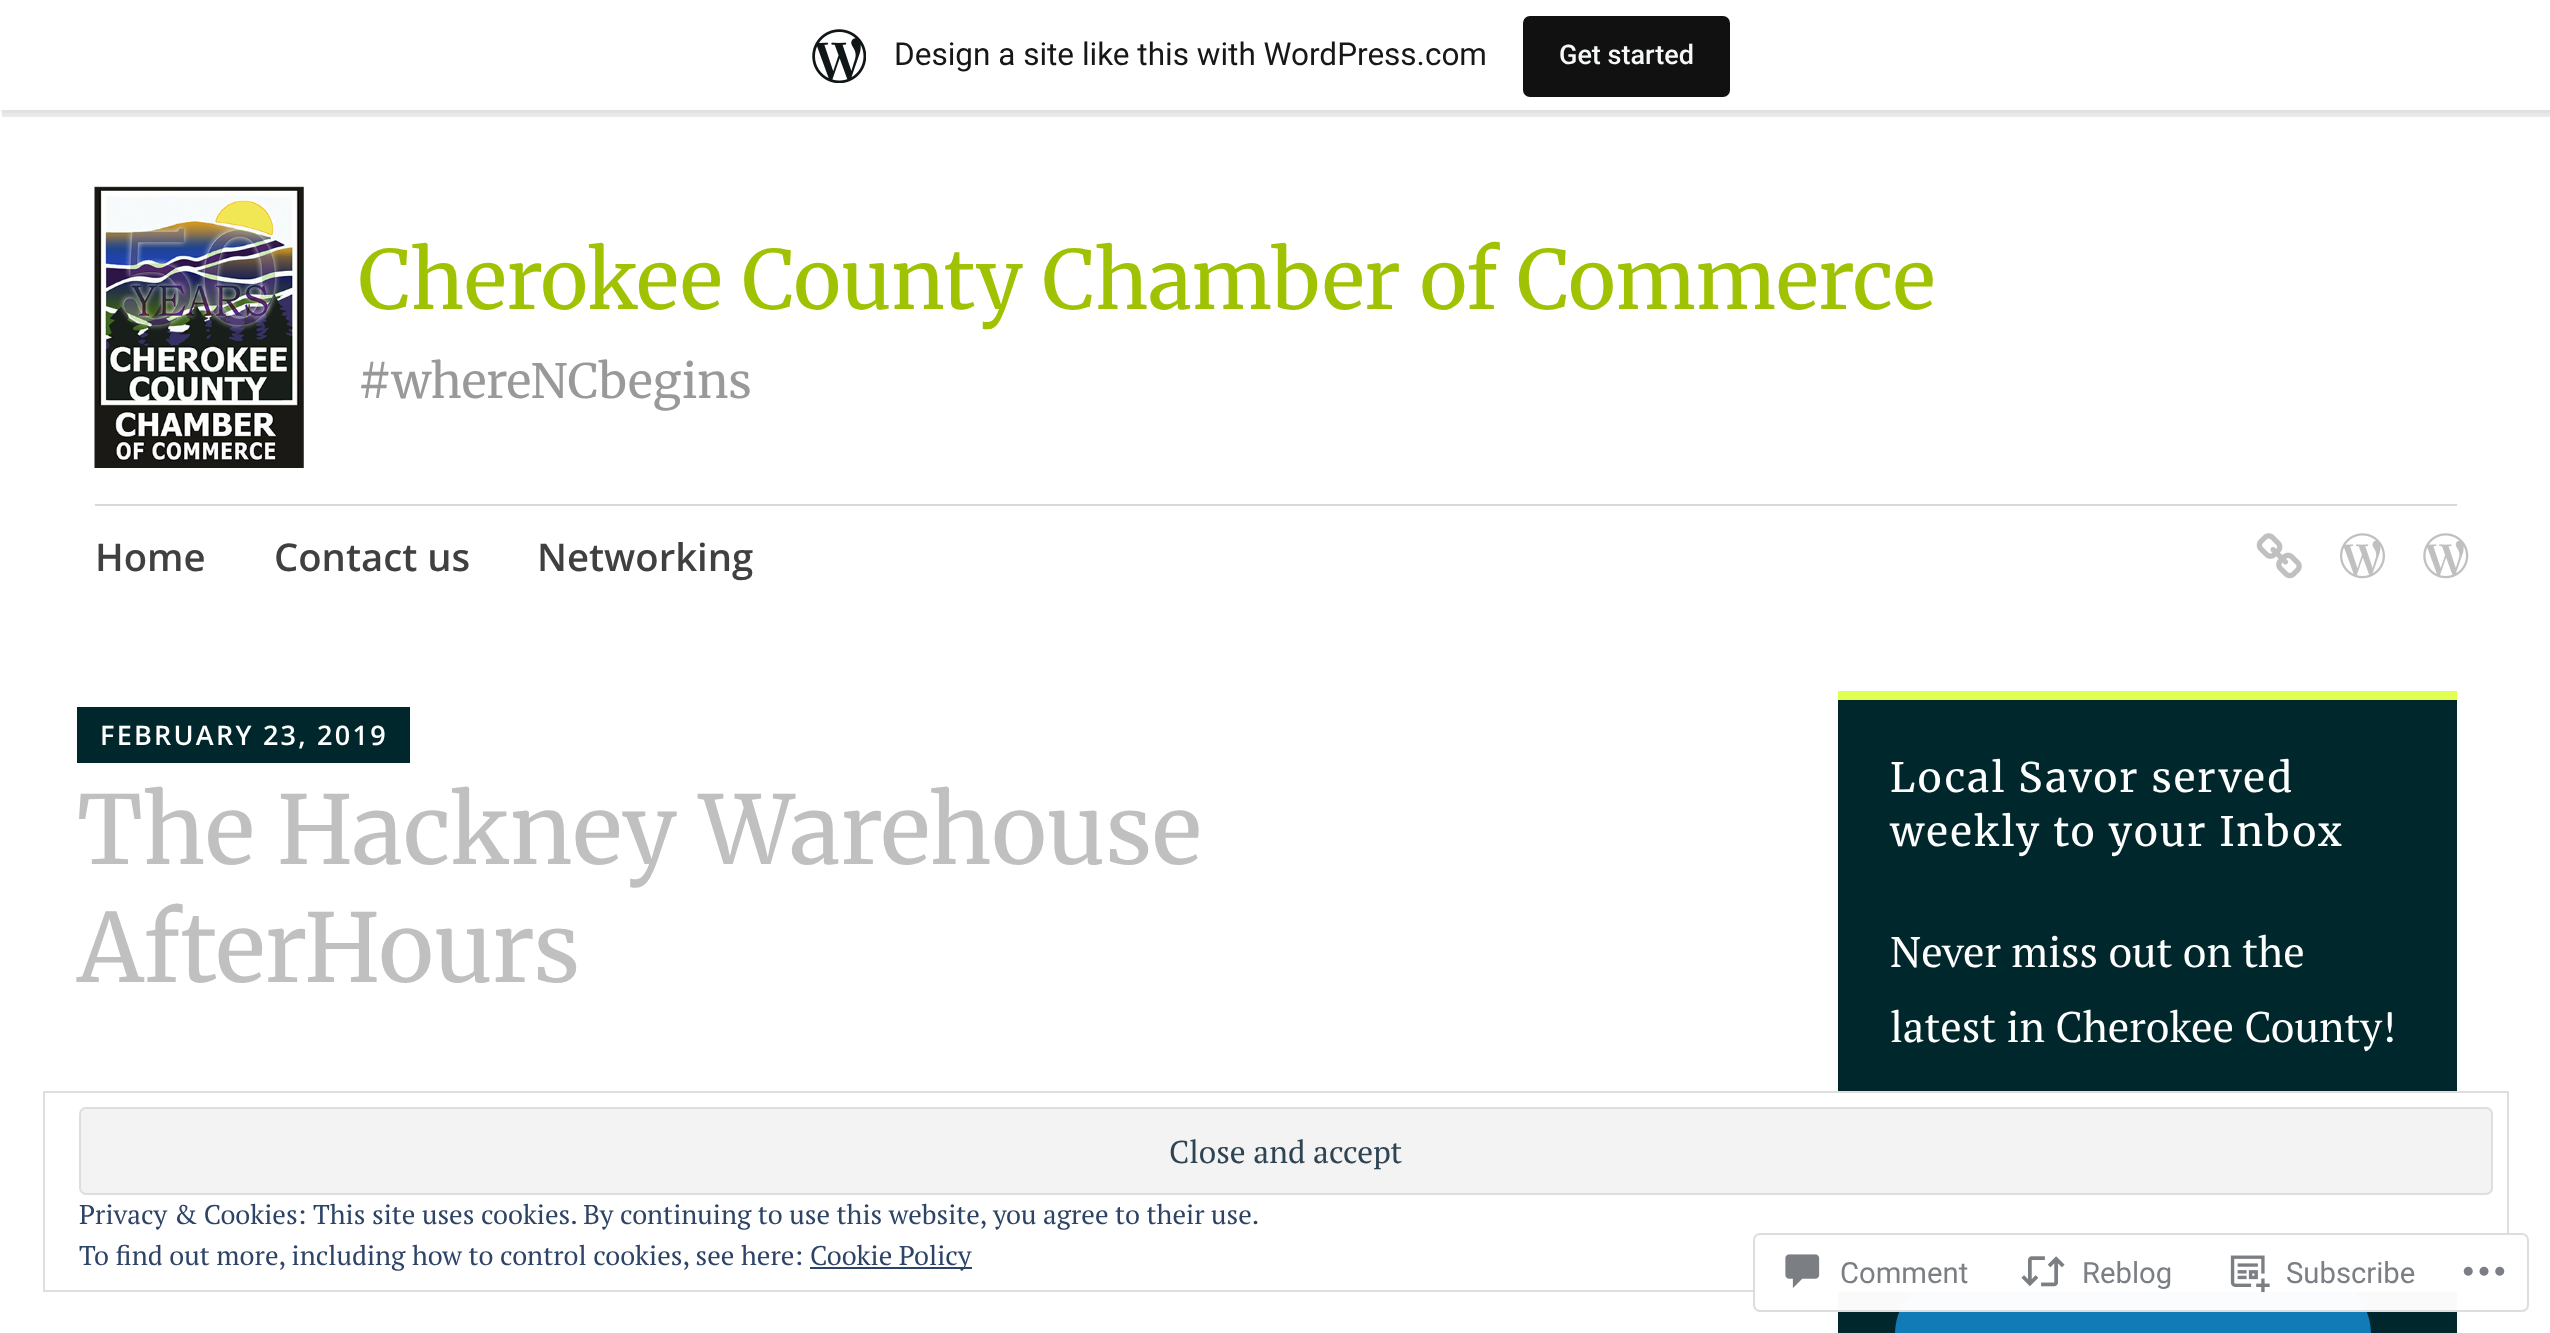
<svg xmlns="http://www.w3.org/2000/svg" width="2550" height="1333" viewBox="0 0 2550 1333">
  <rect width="100%" height="100%" fill="#fff"/>
  <path d="M0 2h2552v111H0z" fill="#0000000d" filter="blur(2px)"/>
  <path d="M2 110V117H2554V7H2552V110Z" fill="#00000014"/>
  <path d="M0 0h2550v110H0z" fill="#fff"/>
  <image x="812" y="29" width="54" height="54" href="img/1.png"/>
  <rect x="1523" y="16" width="207" height="81" rx="7" fill="#111"/>
  <image x="94" y="186" width="210" height="282" href="img/2.png"/>
  <path d="M95 504h2362v2H95z" fill="#d9d9d9"/>
  <image x="2256" y="533" width="46" height="46" href="img/3.png"/>
  <image x="2340" y="533" width="45" height="46" href="img/4.png"/>
  <image x="2423" y="533" width="46" height="46" href="img/5.png"/>
  <path d="M77 707h333v56H77z" fill="#00272b"/>
  <path d="M1838 700h619v633H1838z" fill="#00272b"/>
  <path d="M1838 691h619v9H1838z" fill="#e0ff4f"/>
  <rect x="1892.5" y="1271.5" width="481" height="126" rx="63" fill="#117bb8" stroke="#00272b" stroke-width="5"/>
  <path d="M1838 1093h619v197H1838z" fill="#fff"/>
  <path d="M44 1092h2464v199H44z" fill="none" stroke="#dedede" stroke-width="2"/>
  <rect x="80" y="1108" width="2412" height="86" rx="6" fill="#f3f3f3" stroke="#dedede" stroke-width="2"/>
  <path d="M810 1267h162v2H810z" fill="#2e4467"/>
  <rect x="1753" y="1233" width="776" height="79" rx="7" fill="#fffffffa"/>
  <rect x="1754" y="1234" width="774" height="77" rx="6" fill="none" stroke="#dcdcdefa" stroke-width="2"/>
  <image x="1785" y="1254" width="35" height="34" href="img/6.png"/>
  <image x="2021" y="1256" width="44" height="31" href="img/7.png"/>
  <image x="2230" y="1255" width="40" height="38" href="img/8.png"/>
  <image x="2463" y="1266" width="42" height="10" href="img/9.png"/>
  <text x="894" y="65" font-family="Roboto" font-size="31.5" fill="#171717">Design a site like this with WordPress.com</text>
  <text x="1559" y="64" font-family="Roboto" font-size="27" font-weight="500" fill="#f6f7f7">Get started</text>
  <text x="358" y="309" font-family="Merriweather" font-size="81" font-weight="300" fill="#9fc203">Cherokee County Chamber of Commerce</text>
  <text x="358" y="398" font-family="Merriweather" font-size="47.25" font-weight="300" fill="#999">#whereNCbegins</text>
  <g font-family="Open Sans" font-size="38.25" font-weight="600" fill="#404040">
    <text x="95" y="571">Home</text>
    <text x="274" y="571">Contact us</text>
    <text x="537" y="571">Networking</text>
  </g>
  <text x="100" y="745" font-family="Open Sans" font-size="27" font-weight="600" letter-spacing="2.25" fill="#fff">FEBRUARY 23, 2019</text>
  <g font-family="Merriweather" font-size="94.5" font-weight="300" fill="#c0c0c0">
    <text x="77" y="864">The Hackney Warehouse</text>
    <text x="77" y="982">AfterHours</text>
  </g>
  <g font-family="Merriweather" font-size="40.5" font-weight="300" letter-spacing="2.25" fill="#fff">
    <text x="1890" y="792">Local Savor served</text>
    <text x="1890" y="846">weekly to your Inbox</text>
  </g>
  <g font-family="PT Serif" font-size="42.75" fill="#fff">
    <text x="1890" y="967">Never miss out on the</text>
    <text x="1890" y="1042">latest in Cherokee County!</text>
  </g>
  <text x="1169" y="1163" font-family="PT Serif" font-size="31.5" fill="#2e4453">Close and accept</text>
  <g font-family="PT Serif" font-size="27" fill="#2e4467">
    <text x="79" y="1224">Privacy &amp; Cookies: This site uses cookies. By continuing to use this website, you agree to their use.</text>
    <text x="79" y="1265">To find out more, including how to control cookies, see here:</text>
    <text x="810" y="1265">Cookie Policy</text>
  </g>
  <g font-family="Roboto" font-size="29.25" fill="#7b7f85">
    <text x="1840" y="1283">Comment</text>
    <text x="2082" y="1283">Reblog</text>
    <text x="2286" y="1283">Subscribe</text>
  </g>
</svg>
